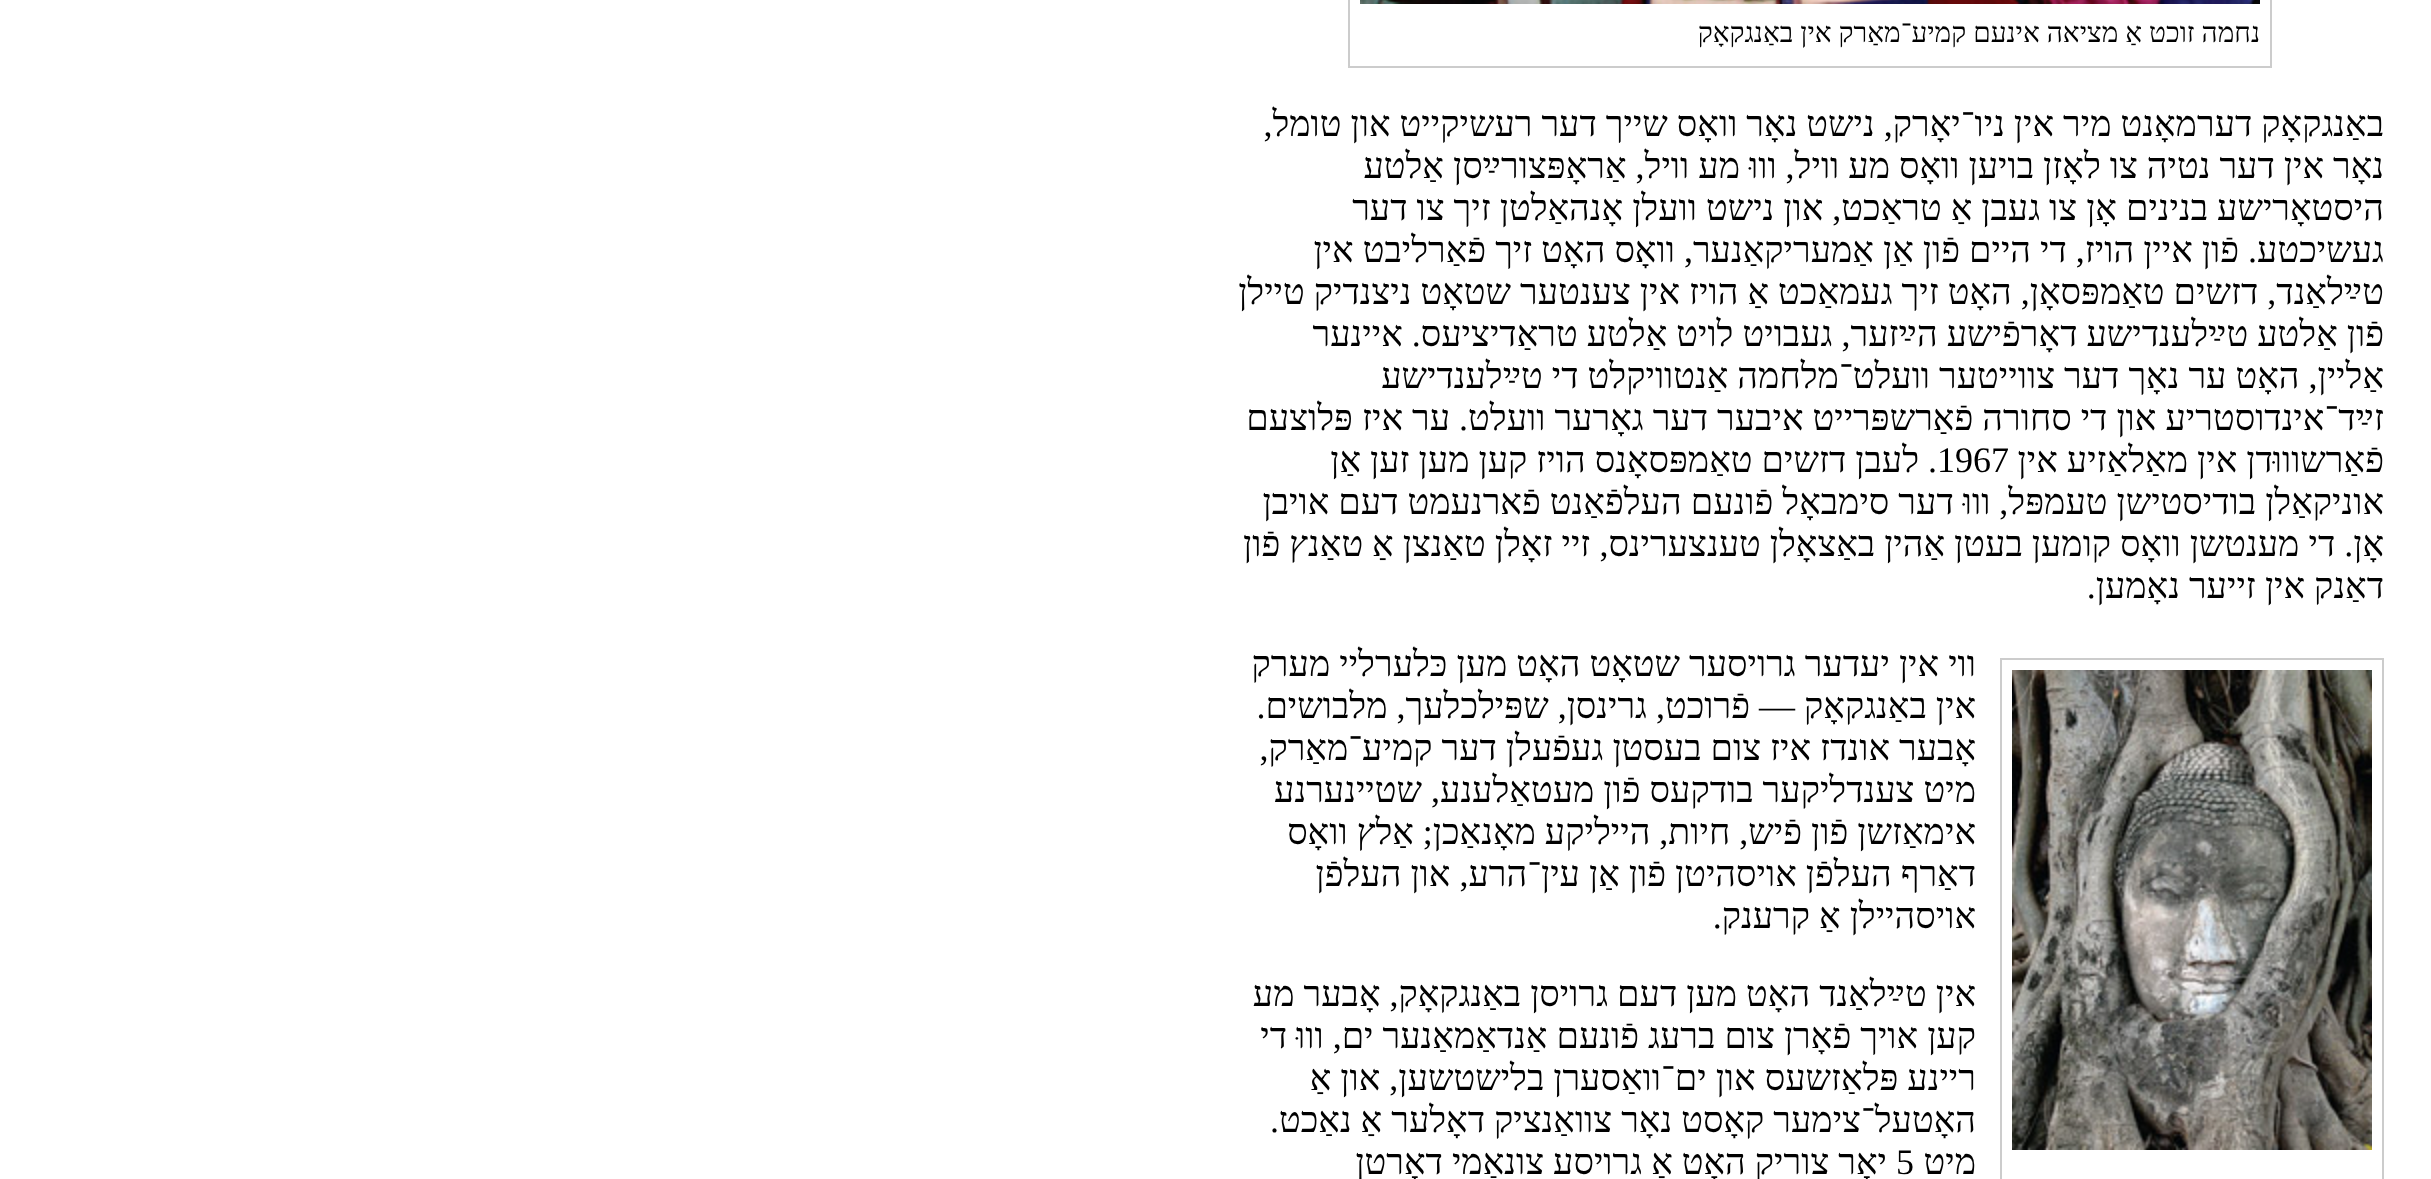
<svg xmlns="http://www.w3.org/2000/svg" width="2431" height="1179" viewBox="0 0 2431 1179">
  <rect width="100%" height="100%" fill="#fff"/>
  <path d="M1349 -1h922v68H1349z" fill="none" stroke="#ccc" stroke-width="2"/>
  <image x="1360" y="0" width="900" height="4" href="img/1.png"/>
  <path d="M2001 659h382v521H2001z" fill="none" stroke="#ccc" stroke-width="2"/>
  <image x="2012" y="670" width="360" height="480" href="img/2.png"/>
  <text x="2260" y="42" font-family="Liberation Serif" font-size="28" direction="rtl" fill="#000">נחמה זוכט אַ מציאה אינעם קמיע־מאַרק אין באַנגקאָק</text>
  <g font-family="Liberation Serif" font-size="36" direction="rtl" fill="#000">
    <text x="2384" y="136">באַנגקאָק דערמאָנט מיר אין ניו־יאָרק, נישט נאָר וואָס שייך דער רעשיקייט און טומל,</text>
    <text x="2384" y="178">נאָר אין דער נטיה צו לאָזן בויען וואָס מע וויל, וווּ מע וויל, אַראָפּצורײַסן אַלטע</text>
    <text x="2384" y="220">היסטאָרישע בנינים אָן צו געבן אַ טראַכט, און נישט וועלן אָנהאַלטן זיך צו דער</text>
    <text x="2384" y="262">געשיכטע. פֿון איין הויז, די היים פֿון אַן אַמעריקאַנער, וואָס האָט זיך פֿאַרליבט אין</text>
    <text x="2384" y="304">טײַלאַנד, דזשים טאַמפּסאָן, האָט זיך געמאַכט אַ הויז אין צענטער שטאָט ניצנדיק טיילן</text>
    <text x="2384" y="346">פֿון אַלטע טײַלענדישע דאָרפֿישע הײַזער, געבויט לויט אַלטע טראַדיציעס. איינער</text>
    <text x="2384" y="388">אַליין, האָט ער נאָך דער צווייטער וועלט־מלחמה אַנטוויקלט די טײַלענדישע</text>
    <text x="2384" y="430">זײַד־אינדוסטריע און די סחורה פֿאַרשפּרייט איבער דער גאָרער וועלט. ער איז פּלוצעם</text>
    <text x="2384" y="472">פֿאַרשוווּדן אין מאַלאַזיע אין</text>
  </g>
  <text x="1937" y="472" font-family="Liberation Serif" font-size="36" fill="#000">1967</text>
  <g font-family="Liberation Serif" font-size="36" direction="rtl" fill="#000">
    <text x="1937" y="472">. לעבן דזשים טאַמפּסאָנס הויז קען מען זען אַן</text>
    <text x="2384" y="514">אוניקאַלן בודיסטישן טעמפּל, וווּ דער סימבאָל פֿונעם העלפֿאַנט פֿארנעמט דעם אויבן</text>
    <text x="2384" y="556">אָן. די מענטשן וואָס קומען בעטן אַהין באַצאָלן טענצערינס, זיי זאָלן טאַנצן אַ טאַנץ פֿון</text>
    <text x="2384" y="598">דאַנק אין זייער נאָמען.</text>
    <text x="1976" y="676">ווי אין יעדער גרויסער שטאָט האָט מען כּלערליי מערק</text>
    <text x="1976" y="718">אין באַנגקאָק — פֿרוכט, גרינסן, שפּילכלעך, מלבושים.</text>
    <text x="1976" y="760">אָבער אונדז איז צום בעסטן געפֿעלן דער קמיע־מאַרק,</text>
    <text x="1976" y="802">מיט צענדליקער בודקעס פֿון מעטאַלענע, שטיינערנע</text>
    <text x="1976" y="844">אימאַזשן פֿון פֿיש, חיות, הייליקע מאָנאַכן; אַלץ וואָס</text>
    <text x="1976" y="886">דאַרף העלפֿן אויסהיטן פֿון אַן עין־הרע, און העלפֿן</text>
    <text x="1976" y="928">אויסהיילן אַ קרענק.</text>
    <text x="1976" y="1006">אין טײַלאַנד האָט מען דעם גרויסן באַנגקאָק, אָבער מע</text>
    <text x="1976" y="1048">קען אויך פֿאָרן צום ברעג פֿונעם אַנדאַמאַנער ים, וווּ די</text>
    <text x="1976" y="1090">ריינע פּלאַזשעס און ים־וואַסערן בלישטשען, און אַ</text>
    <text x="1976" y="1132">האָטעל־צימער קאָסט נאָר צוואַנציק דאָלער אַ נאַכט.</text>
    <text x="1976" y="1174">מיט</text>
  </g>
  <text x="1896" y="1174" font-family="Liberation Serif" font-size="36" fill="#000">5</text>
  <text x="1887" y="1174" font-family="Liberation Serif" font-size="36" direction="rtl" fill="#000">יאָר צוריק האָט אַ גרויסע צונאַמי דאָרטן</text>
</svg>
